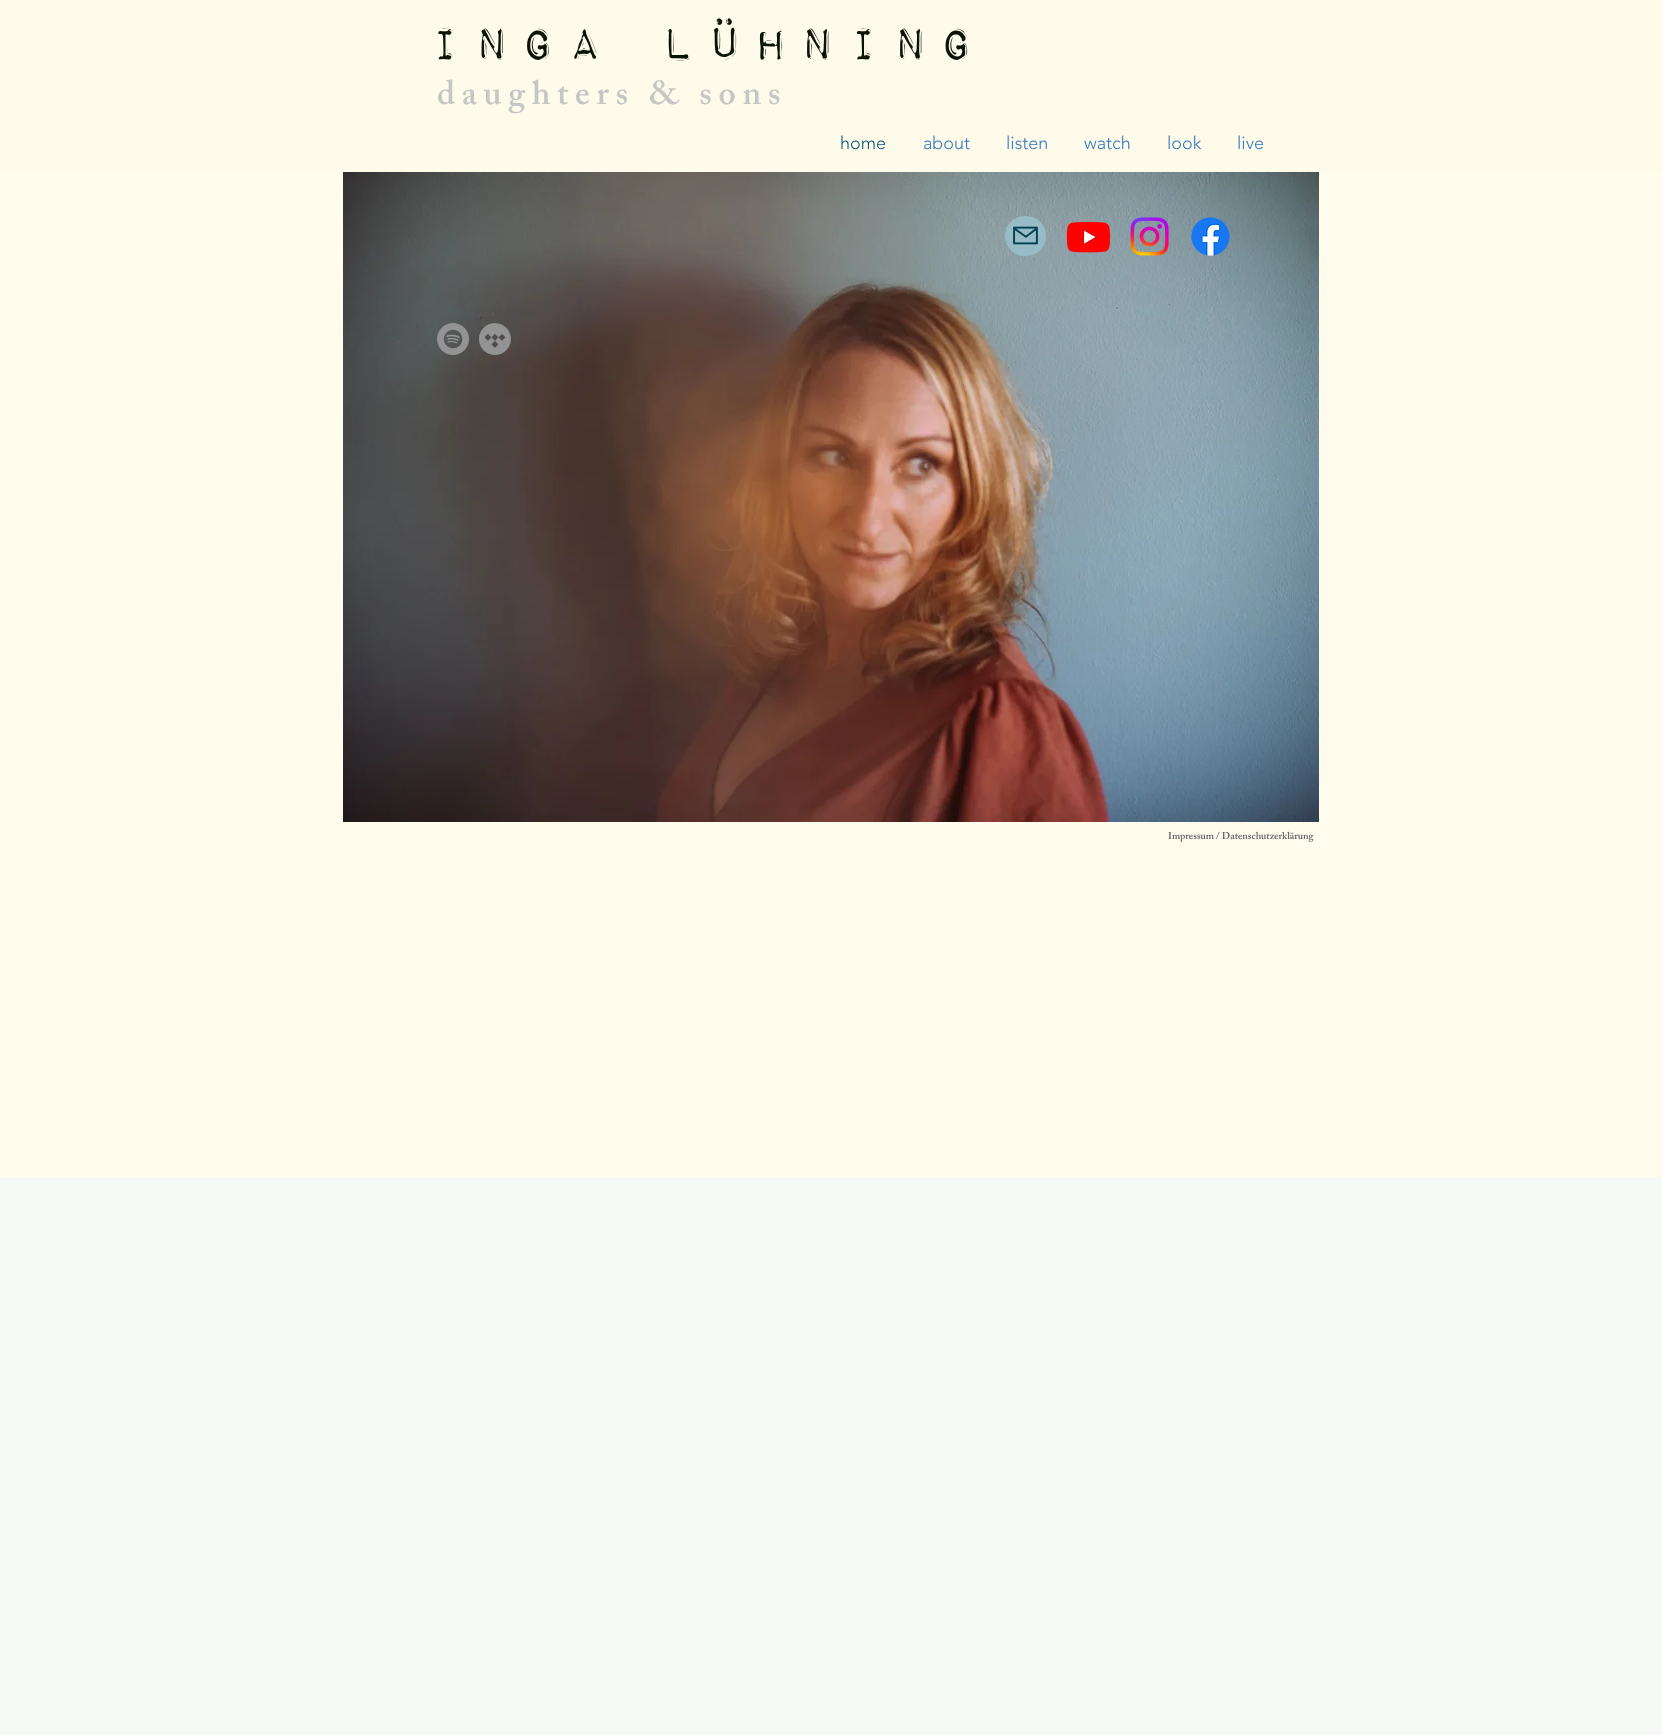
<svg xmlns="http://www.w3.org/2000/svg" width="1662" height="1735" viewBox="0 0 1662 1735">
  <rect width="100%" height="100%" fill="#f6f9f5"/>
  <path d="M0 0h1662v172H0z" fill="#fffbeb"/>
  <path d="M0 172h1662v1005H0z" fill="#fffcee"/>
  <image x="343" y="172" width="976" height="650" href="img/1.png"/>
  <rect x="1005" y="216" width="41" height="40" rx="20" fill="#97bcc8"/>
  <image x="1013" y="226" width="25" height="19" href="img/2.png"/>
  <image x="1066" y="221" width="45" height="32" href="img/3.png"/>
  <image x="1130" y="217" width="39" height="39" href="img/4.png"/>
  <image x="1191" y="217" width="39" height="39" href="img/5.png"/>
  <image x="437" y="323" width="32" height="32" href="img/6.png"/>
  <image x="479" y="323" width="32" height="32" href="img/7.png"/>
  <text x="428" y="60" font-family="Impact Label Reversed" font-size="58" letter-spacing="11.6" fill="#091405">inga lühning</text>
  <text x="437" y="104" font-family="'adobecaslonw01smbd'" font-size="34" font-weight="600" letter-spacing="6.75" fill="#c5c7c4">daughters &amp; sons</text>
  <text x="840" y="149" font-family="'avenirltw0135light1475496'" font-size="18" font-weight="300" fill="#035772">home</text>
  <g font-family="'avenirltw0135light1475496'" font-size="18" font-weight="300" fill="#3078be">
    <text x="923" y="149">about</text>
    <text x="1006" y="149">listen</text>
    <text x="1084" y="149">watch</text>
    <text x="1167" y="149">look</text>
    <text x="1237" y="149">live</text>
  </g>
  <text x="1168" y="839" font-family="'adobecaslonw01smbd'" font-size="10" font-weight="600" fill="#626462">Impressum / Datenschutzerklärung</text>
</svg>
